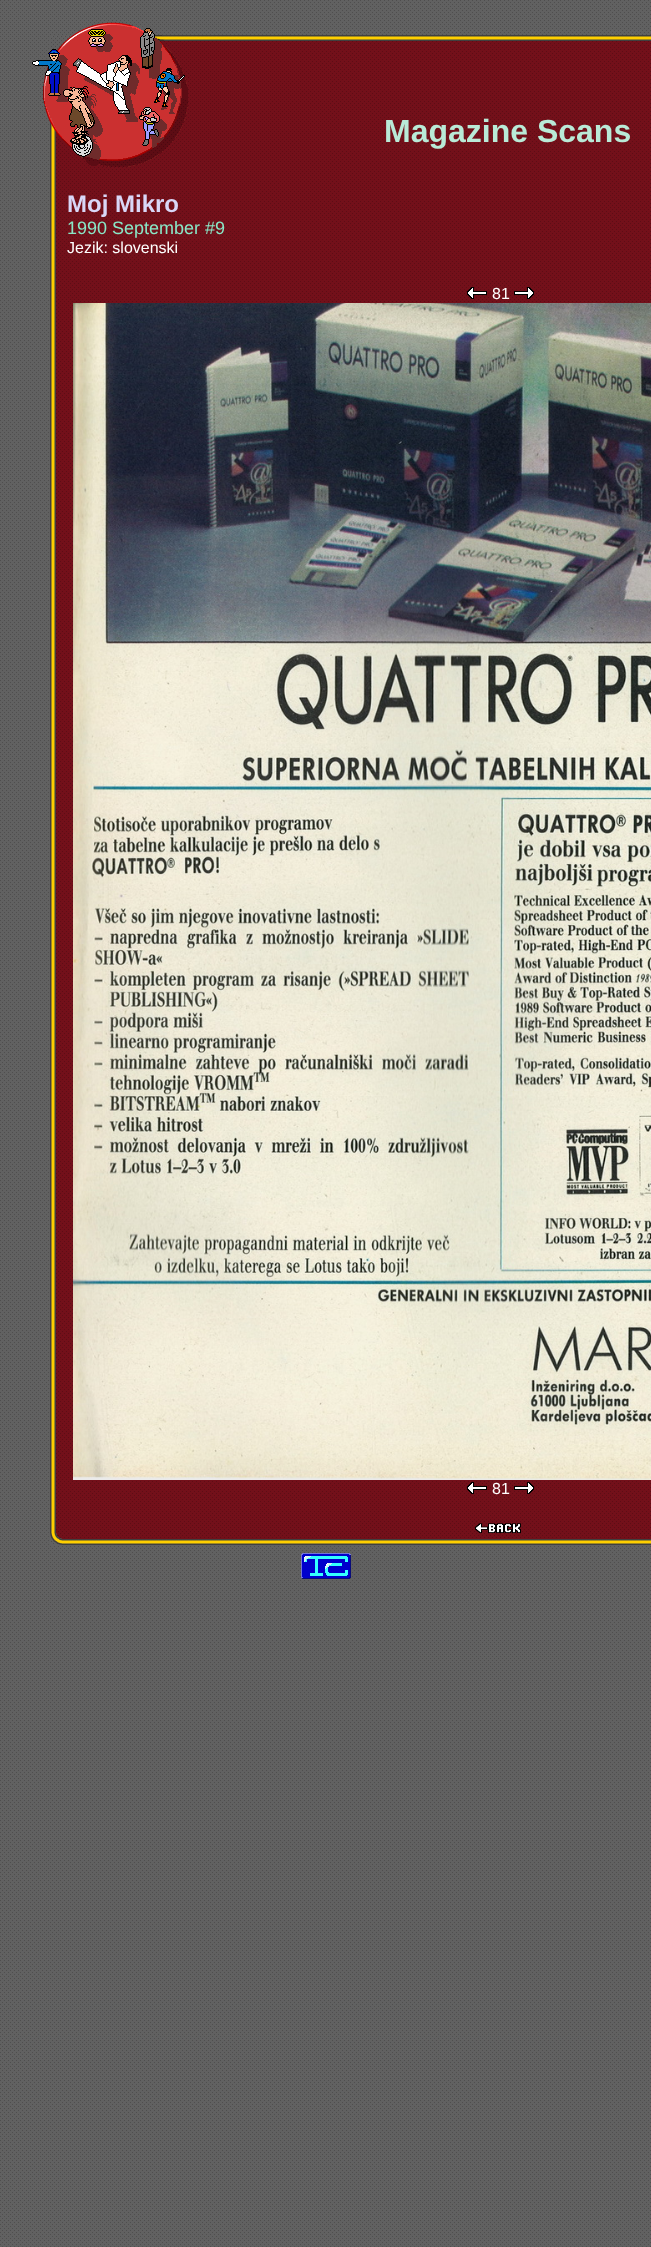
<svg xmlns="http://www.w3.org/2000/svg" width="651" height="2247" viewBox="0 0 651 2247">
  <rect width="100%" height="100%" fill="#fff"/>
  <image x="0" y="0" width="651" height="2247" href="img/1.png"/>
  <image x="73" y="22" width="82" height="13" href="img/2.png"/>
  <image x="32" y="52" width="18" height="70" href="img/3.png"/>
  <image x="56" y="41" width="595" height="1498" href="img/4.png"/>
  <image x="50" y="35" width="12" height="12" href="img/5.png"/>
  <image x="166" y="35" width="485" height="6" href="img/6.png"/>
  <image x="62" y="35" width="104" height="12" href="img/7.png"/>
  <image x="50" y="139" width="6" height="1394" href="img/8.png"/>
  <image x="50" y="47" width="12" height="92" href="img/9.png"/>
  <image x="62" y="47" width="126" height="120" href="img/10.png"/>
  <image x="467" y="287" width="20" height="12" href="img/11.png"/>
  <image x="514" y="287" width="20" height="12" href="img/12.png"/>
  <image x="73" y="303" width="578" height="1177" href="img/13.png"/>
  <image x="467" y="1482" width="20" height="12" href="img/14.png"/>
  <image x="514" y="1482" width="20" height="12" href="img/15.png"/>
  <image x="475" y="1523" width="46" height="10" href="img/16.png"/>
  <image x="50" y="1533" width="12" height="12" href="img/17.png"/>
  <image x="62" y="1539" width="589" height="6" href="img/18.png"/>
  <image x="301" y="1553" width="50" height="26" href="img/19.png"/>
  <text x="384" y="142" font-family="Liberation Sans" font-size="32" font-weight="bold" fill="#b9ead7">Magazine Scans</text>
  <text x="67" y="212" font-family="Liberation Sans" font-size="24" font-weight="bold" fill="#d9d7f7">Moj Mikro</text>
  <text x="67" y="234" font-family="Liberation Sans" font-size="18" fill="#89e7c7">1990 September #9</text>
  <g font-family="Liberation Sans" font-size="16" fill="#fff">
    <text x="67" y="253">Jezik: slovenski</text>
    <text x="492" y="299">81</text>
    <text x="492" y="1494">81</text>
  </g>
</svg>
